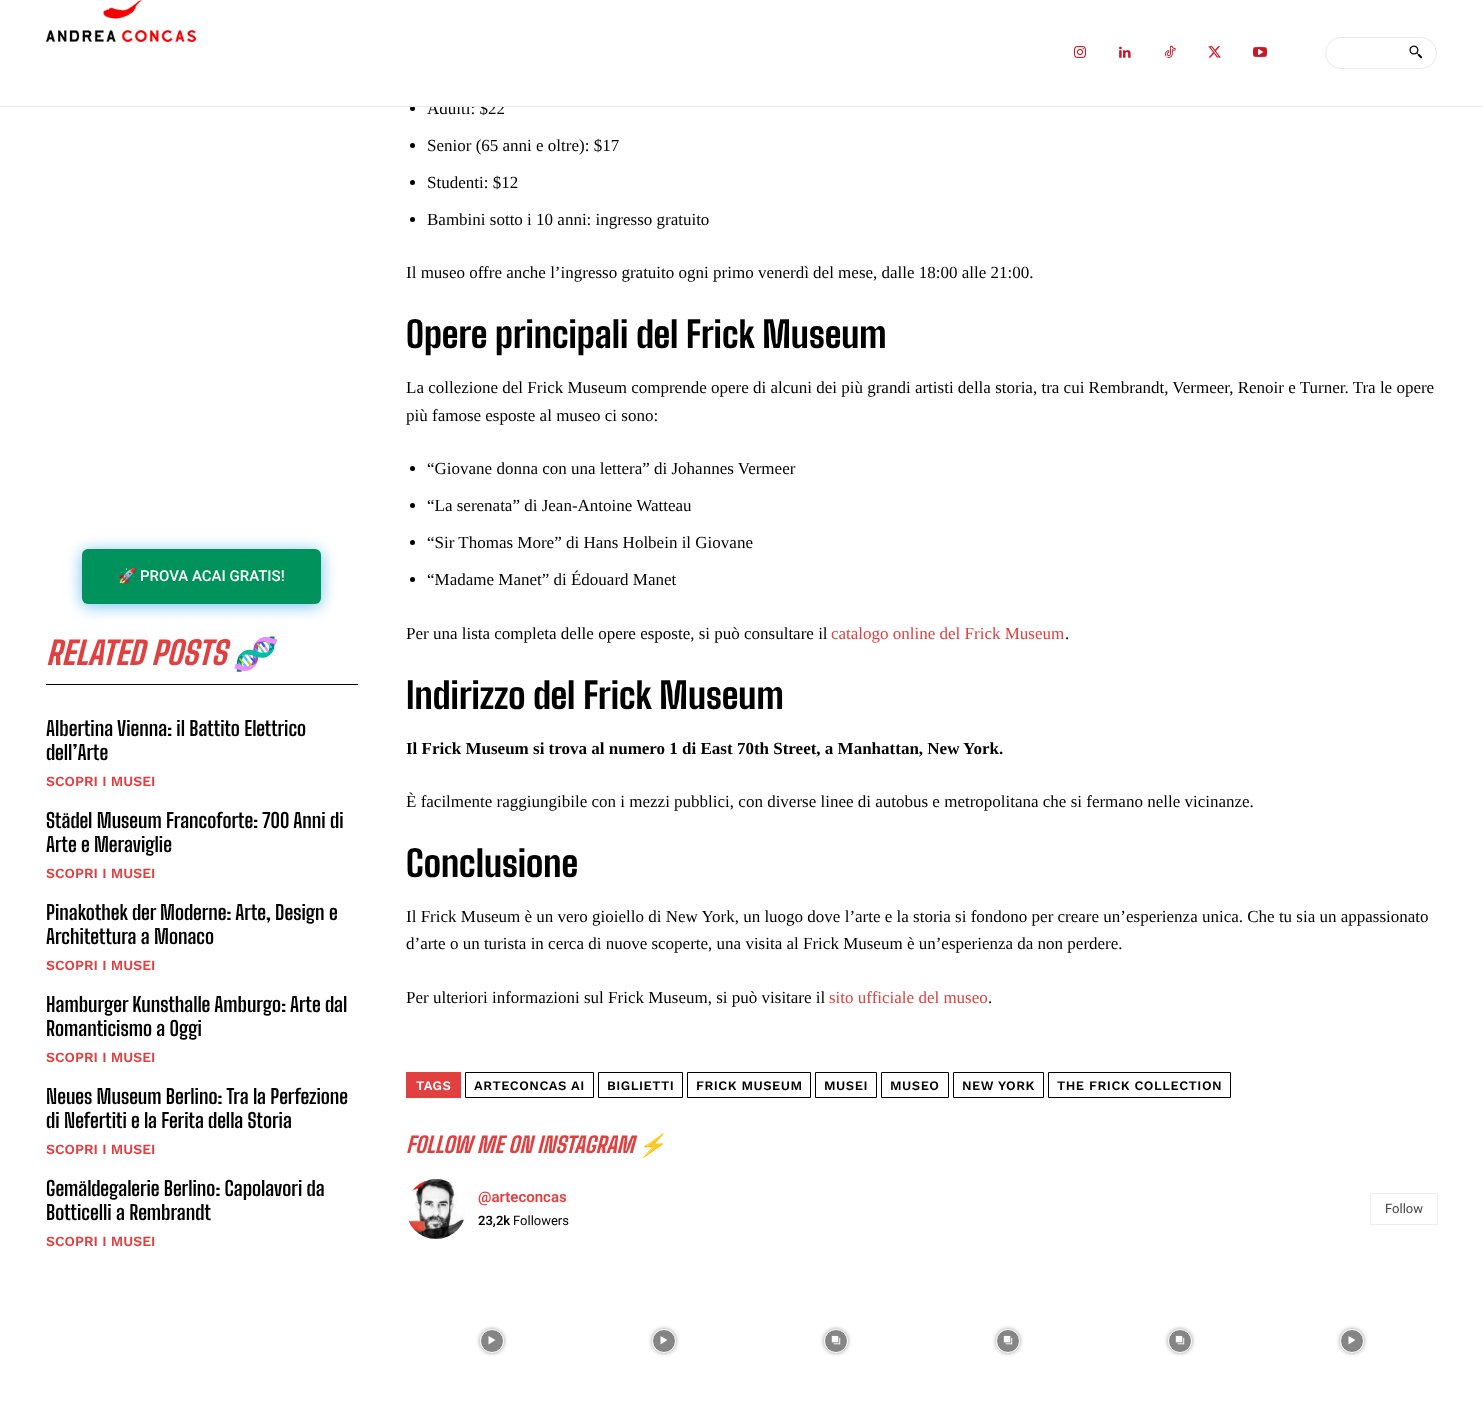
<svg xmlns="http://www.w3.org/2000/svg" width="1483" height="1401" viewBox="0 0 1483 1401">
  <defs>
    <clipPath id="clip1"><path d="M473 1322H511V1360H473ZM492 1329C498.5 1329 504 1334.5 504 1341C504 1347.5 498.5 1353 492 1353C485.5 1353 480 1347.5 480 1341C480 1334.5 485.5 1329 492 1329Z" clip-rule="evenodd"/></clipPath>
    <clipPath id="clip2"><path d="M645 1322H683V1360H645ZM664 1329C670.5 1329 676 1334.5 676 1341C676 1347.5 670.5 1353 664 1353C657.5 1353 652 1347.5 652 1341C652 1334.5 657.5 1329 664 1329Z" clip-rule="evenodd"/></clipPath>
    <clipPath id="clip3"><path d="M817 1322H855V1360H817ZM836 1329C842.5 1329 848 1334.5 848 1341C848 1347.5 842.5 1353 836 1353C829.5 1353 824 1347.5 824 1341C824 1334.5 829.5 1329 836 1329Z" clip-rule="evenodd"/></clipPath>
    <clipPath id="clip4"><path d="M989 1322H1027V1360H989ZM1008 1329C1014.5 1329 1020 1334.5 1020 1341C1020 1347.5 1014.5 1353 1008 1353C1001.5 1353 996 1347.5 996 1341C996 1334.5 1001.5 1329 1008 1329Z" clip-rule="evenodd"/></clipPath>
    <clipPath id="clip5"><path d="M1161 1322H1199V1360H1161ZM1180 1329C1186.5 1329 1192 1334.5 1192 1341C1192 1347.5 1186.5 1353 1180 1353C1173.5 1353 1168 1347.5 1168 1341C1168 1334.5 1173.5 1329 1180 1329Z" clip-rule="evenodd"/></clipPath>
    <clipPath id="clip6"><path d="M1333 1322H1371V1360H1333ZM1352 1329C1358.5 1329 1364 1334.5 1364 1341C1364 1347.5 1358.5 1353 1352 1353C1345.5 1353 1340 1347.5 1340 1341C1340 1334.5 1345.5 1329 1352 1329Z" clip-rule="evenodd"/></clipPath>
  </defs>
  <rect width="100%" height="100%" fill="#fff"/>
  <image x="46" y="0" width="150" height="42" href="img/1.png"/>
  <image x="1074" y="46" width="12" height="12" href="img/2.png"/>
  <image x="1119" y="46" width="12" height="12" href="img/3.png"/>
  <image x="1165" y="45" width="11" height="13" href="img/4.png"/>
  <image x="1208" y="46" width="13" height="12" href="img/5.png"/>
  <image x="1253" y="47" width="14" height="10" href="img/6.png"/>
  <rect x="1325.5" y="37.5" width="111" height="31" rx="15.5" fill="none" stroke="#eaeaea"/>
  <image x="1409" y="45" width="14" height="14" href="img/7.png"/>
  <rect x="82" y="551" width="239" height="55" rx="6" fill="#4db2eccc" filter="blur(8px)"/>
  <rect x="82" y="549" width="239" height="55" rx="6" fill="#00925c"/>
  <path d="M46 684h312v1H46z" fill="#000"/>
  <circle cx="412.5" cy="108.5" r="2.5" fill="#000"/>
  <circle cx="412.5" cy="145.5" r="2.5" fill="#000"/>
  <circle cx="412.5" cy="182.5" r="2.5" fill="#000"/>
  <circle cx="412.5" cy="219.5" r="2.5" fill="#000"/>
  <circle cx="412.5" cy="468.5" r="2.5" fill="#000"/>
  <circle cx="412.5" cy="505.5" r="2.5" fill="#000"/>
  <circle cx="412.5" cy="542.5" r="2.5" fill="#000"/>
  <circle cx="412.5" cy="579.5" r="2.5" fill="#000"/>
  <path d="M406 1072h55v26H406z" fill="#e04040"/>
  <path d="M465.5 1072.5h128v25H465.5z" fill="none" stroke="#000"/>
  <path d="M598.5 1072.5h84v25H598.5z" fill="none" stroke="#000"/>
  <path d="M687.5 1072.5h123v25H687.5z" fill="none" stroke="#000"/>
  <path d="M815.5 1072.5h61v25H815.5z" fill="none" stroke="#000"/>
  <path d="M881.5 1072.5h67v25H881.5z" fill="none" stroke="#000"/>
  <path d="M953.5 1072.5h90v25H953.5z" fill="none" stroke="#000"/>
  <path d="M1048.5 1072.5h182v25H1048.5z" fill="none" stroke="#000"/>
  <image x="408" y="1179" width="57" height="60" href="img/8.png"/>
  <path d="M1370.5 1193.5h67v31H1370.5z" fill="none" stroke="#ededed"/>
  <g clip-path="url(#clip1)">
    <rect x="480" y="1329" width="24" height="24" rx="12" fill="#00000066" filter="blur(2px)"/>
  </g>
  <circle cx="492" cy="1341" r="11.5" fill="#0000007a" stroke="#fff"/>
  <path d="M488.5 1336V1344.5L495.5 1340Z" fill="#fff"/>
  <g clip-path="url(#clip2)">
    <rect x="652" y="1329" width="24" height="24" rx="12" fill="#00000066" filter="blur(2px)"/>
  </g>
  <circle cx="664" cy="1341" r="11.5" fill="#0000007a" stroke="#fff"/>
  <path d="M660.5 1336V1344.5L667.5 1340Z" fill="#fff"/>
  <g clip-path="url(#clip3)">
    <rect x="824" y="1329" width="24" height="24" rx="12" fill="#00000066" filter="blur(2px)"/>
  </g>
  <circle cx="836" cy="1341" r="11.5" fill="#0000007a" stroke="#fff"/>
  <image x="831" y="1335" width="10" height="10" href="img/9.png"/>
  <g clip-path="url(#clip4)">
    <rect x="996" y="1329" width="24" height="24" rx="12" fill="#00000066" filter="blur(2px)"/>
  </g>
  <circle cx="1008" cy="1341" r="11.5" fill="#0000007a" stroke="#fff"/>
  <image x="1003" y="1335" width="10" height="10" href="img/9.png"/>
  <g clip-path="url(#clip5)">
    <rect x="1168" y="1329" width="24" height="24" rx="12" fill="#00000066" filter="blur(2px)"/>
  </g>
  <circle cx="1180" cy="1341" r="11.5" fill="#0000007a" stroke="#fff"/>
  <image x="1175" y="1335" width="10" height="10" href="img/9.png"/>
  <g clip-path="url(#clip6)">
    <rect x="1340" y="1329" width="24" height="24" rx="12" fill="#00000066" filter="blur(2px)"/>
  </g>
  <circle cx="1352" cy="1341" r="11.5" fill="#0000007a" stroke="#fff"/>
  <path d="M1348.5 1336V1344.5L1355.5 1340Z" fill="#fff"/>
  <text x="118" y="581" font-family="Noto Color Emoji" font-size="15" fill="#fff">🚀</text>
  <text x="140" y="581" font-family="Roboto" font-size="15" font-weight="500" fill="#fff">PROVA ACAI GRATIS!</text>
  <text x="46" y="665" font-family="Big Shoulders Text" font-size="32" font-weight="800" font-style="italic" fill="#e04040">RELATED POSTS</text>
  <text x="233" y="665" font-family="Noto Color Emoji" font-size="32" font-weight="bold" font-style="italic" fill="#e04040">🧬</text>
  <g font-family="Big Shoulders Text" font-size="20" font-weight="bold" fill="#000">
    <text x="46" y="736">Albertina Vienna: il Battito Elettrico</text>
    <text x="46" y="760">dell’Arte</text>
  </g>
  <text x="46" y="786" font-family="Work Sans" font-size="14" font-weight="600" fill="#e04040">SCOPRI I MUSEI</text>
  <g font-family="Big Shoulders Text" font-size="20" font-weight="bold" fill="#000">
    <text x="46" y="828">Städel Museum Francoforte: 700 Anni di</text>
    <text x="46" y="852">Arte e Meraviglie</text>
  </g>
  <text x="46" y="878" font-family="Work Sans" font-size="14" font-weight="600" fill="#e04040">SCOPRI I MUSEI</text>
  <g font-family="Big Shoulders Text" font-size="20" font-weight="bold" fill="#000">
    <text x="46" y="920">Pinakothek der Moderne: Arte, Design e</text>
    <text x="46" y="944">Architettura a Monaco</text>
  </g>
  <text x="46" y="970" font-family="Work Sans" font-size="14" font-weight="600" fill="#e04040">SCOPRI I MUSEI</text>
  <g font-family="Big Shoulders Text" font-size="20" font-weight="bold" fill="#000">
    <text x="46" y="1012">Hamburger Kunsthalle Amburgo: Arte dal</text>
    <text x="46" y="1036">Romanticismo a Oggi</text>
  </g>
  <text x="46" y="1062" font-family="Work Sans" font-size="14" font-weight="600" fill="#e04040">SCOPRI I MUSEI</text>
  <g font-family="Big Shoulders Text" font-size="20" font-weight="bold" fill="#000">
    <text x="46" y="1104">Neues Museum Berlino: Tra la Perfezione</text>
    <text x="46" y="1128">di Nefertiti e la Ferita della Storia</text>
  </g>
  <text x="46" y="1154" font-family="Work Sans" font-size="14" font-weight="600" fill="#e04040">SCOPRI I MUSEI</text>
  <g font-family="Big Shoulders Text" font-size="20" font-weight="bold" fill="#000">
    <text x="46" y="1196">Gemäldegalerie Berlino: Capolavori da</text>
    <text x="46" y="1220">Botticelli a Rembrandt</text>
  </g>
  <text x="46" y="1246" font-family="Work Sans" font-size="14" font-weight="600" fill="#e04040">SCOPRI I MUSEI</text>
  <text x="427" y="114" font-family="Liberation Serif" font-size="17" fill="#000">Adulti: $22</text>
  <path d="M430 101h74v5H430z" fill="#fff"/>
  <path d="M0 106h1483v1H0z" fill="#e8e8e8"/>
  <g font-family="Liberation Serif" font-size="17" fill="#000">
    <text x="427" y="151">Senior (65 anni e oltre): $17</text>
    <text x="427" y="188">Studenti: $12</text>
    <text x="427" y="225">Bambini sotto i 10 anni: ingresso gratuito</text>
    <text x="406" y="278">Il museo offre anche l’ingresso gratuito ogni primo venerdì del mese, dalle 18:00 alle 21:00.</text>
  </g>
  <text x="406" y="348" font-family="Big Shoulders Text" font-size="36" font-weight="800" fill="#000">Opere principali del Frick Museum</text>
  <g font-family="Liberation Serif" font-size="17" fill="#000">
    <text x="406" y="393">La collezione del Frick Museum comprende opere di alcuni dei più grandi artisti della storia, tra cui Rembrandt, Vermeer, Renoir e Turner. Tra le opere</text>
    <text x="406" y="421">più famose esposte al museo ci sono:</text>
    <text x="427" y="474">“Giovane donna con una lettera” di Johannes Vermeer</text>
    <text x="427" y="511">“La serenata” di Jean-Antoine Watteau</text>
    <text x="427" y="548">“Sir Thomas More” di Hans Holbein il Giovane</text>
    <text x="427" y="585">“Madame Manet” di Édouard Manet</text>
    <text x="406" y="639">Per una lista completa delle opere esposte, si può consultare il</text>
  </g>
  <text x="831" y="639" font-family="Liberation Serif" font-size="17" fill="#e04040">catalogo online del Frick Museum</text>
  <text x="1065" y="639" font-family="Liberation Serif" font-size="17" fill="#000">.</text>
  <text x="406" y="709" font-family="Big Shoulders Text" font-size="36" font-weight="800" fill="#000">Indirizzo del Frick Museum</text>
  <text x="406" y="754" font-family="Liberation Serif" font-size="17" font-weight="bold" fill="#000">Il Frick Museum si trova al numero 1 di East 70th Street, a Manhattan, New York.</text>
  <text x="406" y="807" font-family="Liberation Serif" font-size="17" fill="#000">È facilmente raggiungibile con i mezzi pubblici, con diverse linee di autobus e metropolitana che si fermano nelle vicinanze.</text>
  <text x="406" y="877" font-family="Big Shoulders Text" font-size="36" font-weight="800" fill="#000">Conclusione</text>
  <g font-family="Liberation Serif" font-size="17" fill="#000">
    <text x="406" y="922">Il Frick Museum è un vero gioiello di New York, un luogo dove l’arte e la storia si fondono per creare un’esperienza unica. Che tu sia un appassionato</text>
    <text x="406" y="949">d’arte o un turista in cerca di nuove scoperte, una visita al Frick Museum è un’esperienza da non perdere.</text>
    <text x="406" y="1003">Per ulteriori informazioni sul Frick Museum, si può visitare il</text>
  </g>
  <text x="829" y="1003" font-family="Liberation Serif" font-size="17" fill="#e04040">sito ufficiale del museo</text>
  <text x="988" y="1003" font-family="Liberation Serif" font-size="17" fill="#000">.</text>
  <text x="416" y="1090" font-family="Work Sans" font-size="13" font-weight="600" letter-spacing="0.5" fill="#fff">TAGS</text>
  <g font-family="Work Sans" font-size="13" font-weight="600" letter-spacing="0.5" fill="#000">
    <text x="474" y="1090">ARTECONCAS AI</text>
    <text x="607" y="1090">BIGLIETTI</text>
    <text x="696" y="1090">FRICK MUSEUM</text>
    <text x="824" y="1090">MUSEI</text>
    <text x="890" y="1090">MUSEO</text>
    <text x="962" y="1090">NEW YORK</text>
    <text x="1057" y="1090">THE FRICK COLLECTION</text>
  </g>
  <text x="406" y="1153" font-family="Big Shoulders Text" font-size="22" font-weight="800" font-style="italic" fill="#e04040">FOLLOW ME ON INSTAGRAM</text>
  <text x="638" y="1153" font-family="Noto Color Emoji" font-size="22" font-weight="bold" font-style="italic" fill="#e04040">⚡️</text>
  <text x="478" y="1202" font-family="Roboto" font-size="15" font-weight="600" fill="#e04040">@arteconcas</text>
  <text x="1385" y="1213" font-family="Roboto" font-size="13" fill="#444">Follow</text>
  <text x="478" y="1225" font-family="Roboto" font-size="13" font-weight="600" fill="#000">23,2k</text>
  <text x="513" y="1225" font-family="Roboto" font-size="13" fill="#000">Followers</text>
</svg>
